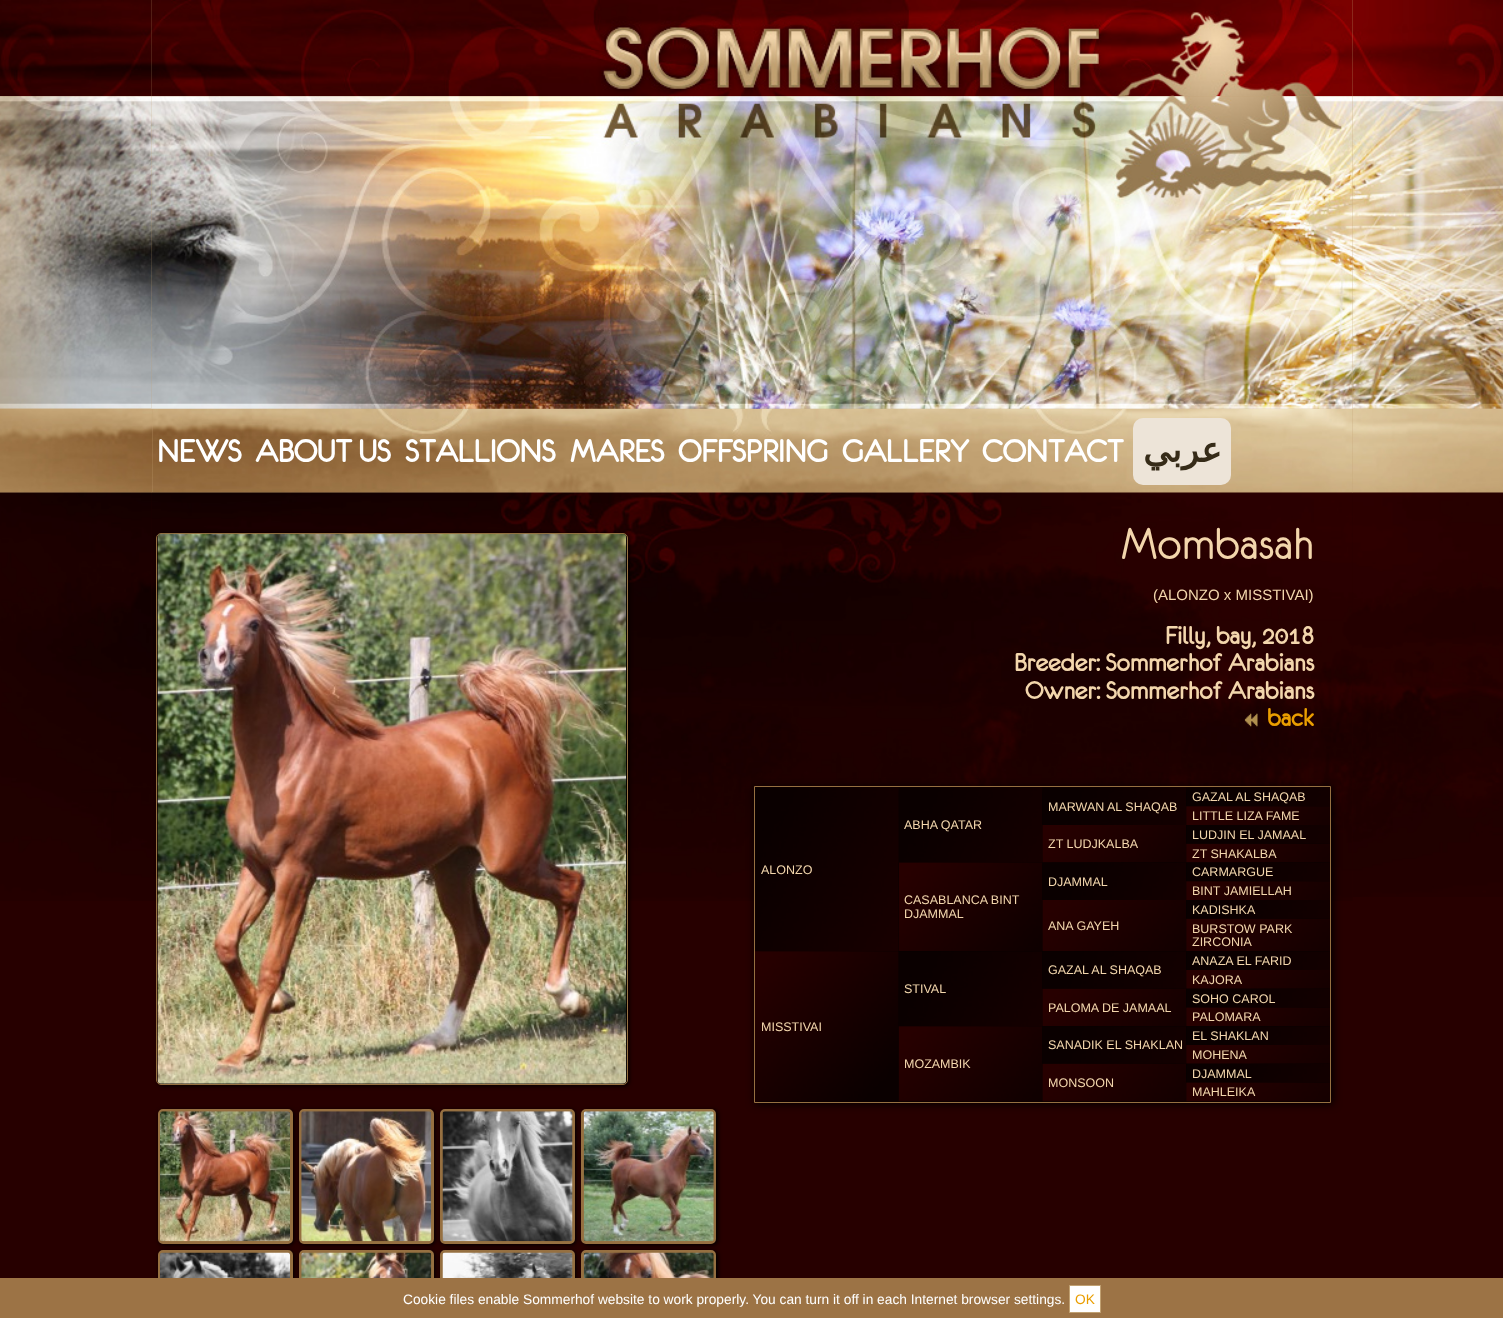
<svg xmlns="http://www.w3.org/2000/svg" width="1503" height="1318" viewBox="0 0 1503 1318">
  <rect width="100%" height="100%" fill="#c1a172"/>
  <image x="0" y="0" width="152" height="97" href="img/1.png"/>
  <image x="151" y="0" width="1202" height="97" href="img/2.png"/>
  <image x="1352" y="0" width="151" height="97" href="img/3.png"/>
  <image x="0" y="96" width="152" height="313" href="img/4.png"/>
  <image x="1352" y="96" width="151" height="313" href="img/6.png"/>
  <image x="0" y="408" width="153" height="85" href="img/7.png"/>
  <image x="152" y="408" width="1201" height="85" href="img/8.png"/>
  <image x="1352" y="408" width="151" height="85" href="img/9.png"/>
  <image x="151" y="96" width="1202" height="313" href="img/5.png"/>
  <rect x="1133" y="418" width="98" height="67" rx="10" fill="#ede4d8"/>
  <path d="M0 493h1503v785H0z" fill="#270000"/>
  <image x="0" y="492" width="152" height="409" href="img/10.png"/>
  <image x="151" y="492" width="1202" height="409" href="img/11.png"/>
  <rect x="158" y="534" width="471" height="552" rx="5" fill="#000" filter="blur(2px)"/>
  <rect x="156.5" y="533.5" width="471" height="551" rx="4.5" fill="none" stroke="#967041"/>
  <image x="157" y="533" width="470" height="551" href="img/12.png"/>
  <rect x="159" y="1110" width="135" height="135" rx="5" fill="#000" filter="blur(2px)"/>
  <rect x="159.5" y="1110.5" width="132" height="132" rx="3.5" fill="none" stroke="#967041" stroke-width="3"/>
  <image x="160" y="1111" width="130" height="131" href="img/13.png"/>
  <rect x="300" y="1110" width="135" height="135" rx="5" fill="#000" filter="blur(2px)"/>
  <rect x="300.5" y="1110.5" width="132" height="132" rx="3.5" fill="none" stroke="#967041" stroke-width="3"/>
  <image x="301" y="1111" width="131" height="131" href="img/14.png"/>
  <rect x="441" y="1110" width="135" height="135" rx="5" fill="#000" filter="blur(2px)"/>
  <rect x="441.5" y="1110.5" width="132" height="132" rx="3.5" fill="none" stroke="#967041" stroke-width="3"/>
  <image x="442" y="1111" width="131" height="131" href="img/15.png"/>
  <rect x="583" y="1110" width="135" height="135" rx="5" fill="#000" filter="blur(2px)"/>
  <rect x="582.5" y="1110.5" width="132" height="132" rx="3.5" fill="none" stroke="#967041" stroke-width="3"/>
  <image x="583" y="1111" width="131" height="131" href="img/16.png"/>
  <rect x="159" y="1251" width="135" height="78" rx="5" fill="#000" filter="blur(2px)"/>
  <rect x="159.5" y="1251.5" width="132" height="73" rx="3.5" fill="none" stroke="#967041" stroke-width="3"/>
  <image x="160" y="1252" width="130" height="26" href="img/17.png"/>
  <rect x="300" y="1251" width="135" height="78" rx="5" fill="#000" filter="blur(2px)"/>
  <rect x="300.5" y="1251.5" width="132" height="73" rx="3.5" fill="none" stroke="#967041" stroke-width="3"/>
  <image x="301" y="1252" width="131" height="26" href="img/18.png"/>
  <rect x="441" y="1251" width="135" height="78" rx="5" fill="#000" filter="blur(2px)"/>
  <rect x="441.5" y="1251.5" width="132" height="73" rx="3.5" fill="none" stroke="#967041" stroke-width="3"/>
  <image x="442" y="1252" width="131" height="26" href="img/19.png"/>
  <rect x="583" y="1251" width="135" height="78" rx="5" fill="#000" filter="blur(2px)"/>
  <rect x="582.5" y="1251.5" width="132" height="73" rx="3.5" fill="none" stroke="#967041" stroke-width="3"/>
  <image x="583" y="1252" width="131" height="26" href="img/20.png"/>
  <image x="1244" y="713" width="14" height="14" href="img/21.png"/>
  <path d="M755 788h578v316H755z" fill="#000" filter="blur(4px)"/>
  <path d="M754.5 786.5h576v316H754.5z" fill="none" stroke="#967041"/>
  <image x="899" y="787" width="144" height="76" href="img/24.png"/>
  <image x="1042" y="787" width="145" height="38" href="img/23.png"/>
  <image x="1186" y="787" width="144" height="20" href="img/22.png"/>
  <image x="755" y="787" width="144" height="165" href="img/25.png"/>
  <image x="1186" y="806" width="144" height="19" href="img/26.png"/>
  <image x="1042" y="825" width="145" height="38" href="img/28.png"/>
  <image x="1186" y="825" width="144" height="19" href="img/27.png"/>
  <image x="1186" y="843" width="144" height="20" href="img/29.png"/>
  <image x="899" y="862" width="144" height="90" href="img/32.png"/>
  <image x="1042" y="862" width="145" height="38" href="img/31.png"/>
  <image x="1186" y="862" width="144" height="20" href="img/30.png"/>
  <image x="1186" y="881" width="144" height="19" href="img/33.png"/>
  <image x="1042" y="900" width="145" height="52" href="img/35.png"/>
  <image x="1186" y="900" width="144" height="19" href="img/34.png"/>
  <image x="1186" y="918" width="144" height="34" href="img/36.png"/>
  <image x="755" y="951" width="144" height="151" href="img/40.png"/>
  <image x="898" y="951" width="145" height="76" href="img/39.png"/>
  <image x="1042" y="951" width="145" height="38" href="img/38.png"/>
  <image x="1186" y="951" width="144" height="19" href="img/37.png"/>
  <image x="1186" y="970" width="144" height="19" href="img/41.png"/>
  <image x="1042" y="988" width="145" height="39" href="img/43.png"/>
  <image x="1186" y="988" width="144" height="20" href="img/42.png"/>
  <image x="1186" y="1007" width="144" height="20" href="img/44.png"/>
  <image x="898" y="1026" width="145" height="76" href="img/47.png"/>
  <image x="1042" y="1026" width="145" height="38" href="img/46.png"/>
  <image x="1186" y="1026" width="144" height="19" href="img/45.png"/>
  <image x="1186" y="1045" width="144" height="19" href="img/41.png"/>
  <image x="1042" y="1063" width="145" height="39" href="img/48.png"/>
  <image x="1186" y="1063" width="144" height="20" href="img/42.png"/>
  <image x="1186" y="1082" width="144" height="20" href="img/44.png"/>
  <image x="1352" y="492" width="151" height="405" href="img/49.png"/>
  <path d="M0 1278h1503v40H0z" fill="#9c7345"/>
  <path d="M1069.5 1285.5h31v27H1069.5z" fill="#fff" stroke="#c1a172"/>
  <g font-family="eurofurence" font-size="35" font-weight="bold" fill="#fff">
    <text x="157" y="462">NEWS</text>
    <text x="255" y="462">ABOUT US</text>
    <text x="405" y="462">STALLIONS</text>
    <text x="570" y="462">MARES</text>
    <text x="678" y="462">OFFSPRING</text>
    <text x="842" y="462">GALLERY</text>
    <text x="982" y="462">CONTACT</text>
  </g>
  <text x="1222" y="462" font-family="DejaVu Sans" font-size="35" font-weight="bold" direction="rtl" fill="#362b18">عربي</text>
  <text x="1121" y="559" font-family="eurofurence" font-size="50" fill="#f3d6ac">Mombasah</text>
  <text x="1153" y="600" font-family="Liberation Sans" font-size="15" fill="#f3d6ac">(ALONZO x MISSTIVAI)</text>
  <g font-family="eurofurence" font-size="27.5" font-weight="bold" fill="#f3d6ac">
    <text x="1165" y="644">Filly, bay, 2018</text>
    <text x="1014" y="671">Breeder: Sommerhof Arabians</text>
    <text x="1025" y="699">Owner: Sommerhof Arabians</text>
  </g>
  <text x="1267" y="726" font-family="eurofurence" font-size="27.5" font-weight="bold" fill="#ea9e00">back</text>
  <g font-family="Liberation Sans" font-size="12.5" fill="#f3d6ac">
    <text x="1192" y="801">GAZAL AL SHAQAB</text>
    <text x="1048" y="811">MARWAN AL SHAQAB</text>
    <text x="904" y="829">ABHA QATAR</text>
    <text x="761" y="874">ALONZO</text>
    <text x="1192" y="820">LITTLE LIZA FAME</text>
    <text x="1192" y="839">LUDJIN EL JAMAAL</text>
    <text x="1048" y="848">ZT LUDJKALBA</text>
    <text x="1192" y="858">ZT SHAKALBA</text>
    <text x="1192" y="876">CARMARGUE</text>
    <text x="1048" y="886">DJAMMAL</text>
    <text x="904" y="904">CASABLANCA BINT</text>
    <text x="904" y="918">DJAMMAL</text>
    <text x="1192" y="895">BINT JAMIELLAH</text>
    <text x="1192" y="914">KADISHKA</text>
    <text x="1048" y="930">ANA GAYEH</text>
    <text x="1192" y="933">BURSTOW PARK</text>
    <text x="1192" y="946">ZIRCONIA</text>
    <text x="1192" y="965">ANAZA EL FARID</text>
    <text x="1048" y="974">GAZAL AL SHAQAB</text>
    <text x="904" y="993">STIVAL</text>
    <text x="761" y="1031">MISSTIVAI</text>
    <text x="1192" y="984">KAJORA</text>
    <text x="1192" y="1003">SOHO CAROL</text>
    <text x="1048" y="1012">PALOMA DE JAMAAL</text>
    <text x="1192" y="1021">PALOMARA</text>
    <text x="1192" y="1040">EL SHAKLAN</text>
    <text x="1048" y="1049">SANADIK EL SHAKLAN</text>
    <text x="904" y="1068">MOZAMBIK</text>
    <text x="1192" y="1059">MOHENA</text>
    <text x="1192" y="1078">DJAMMAL</text>
    <text x="1048" y="1087">MONSOON</text>
    <text x="1192" y="1096">MAHLEIKA</text>
  </g>
  <text x="403" y="1304" font-family="Liberation Sans" font-size="13.75" fill="#fff">Cookie files enable Sommerhof website to work properly. You can turn it off in each Internet browser settings.</text>
  <text x="1075" y="1304" font-family="Liberation Sans" font-size="13.75" fill="#ea9e00">OK</text>
</svg>
